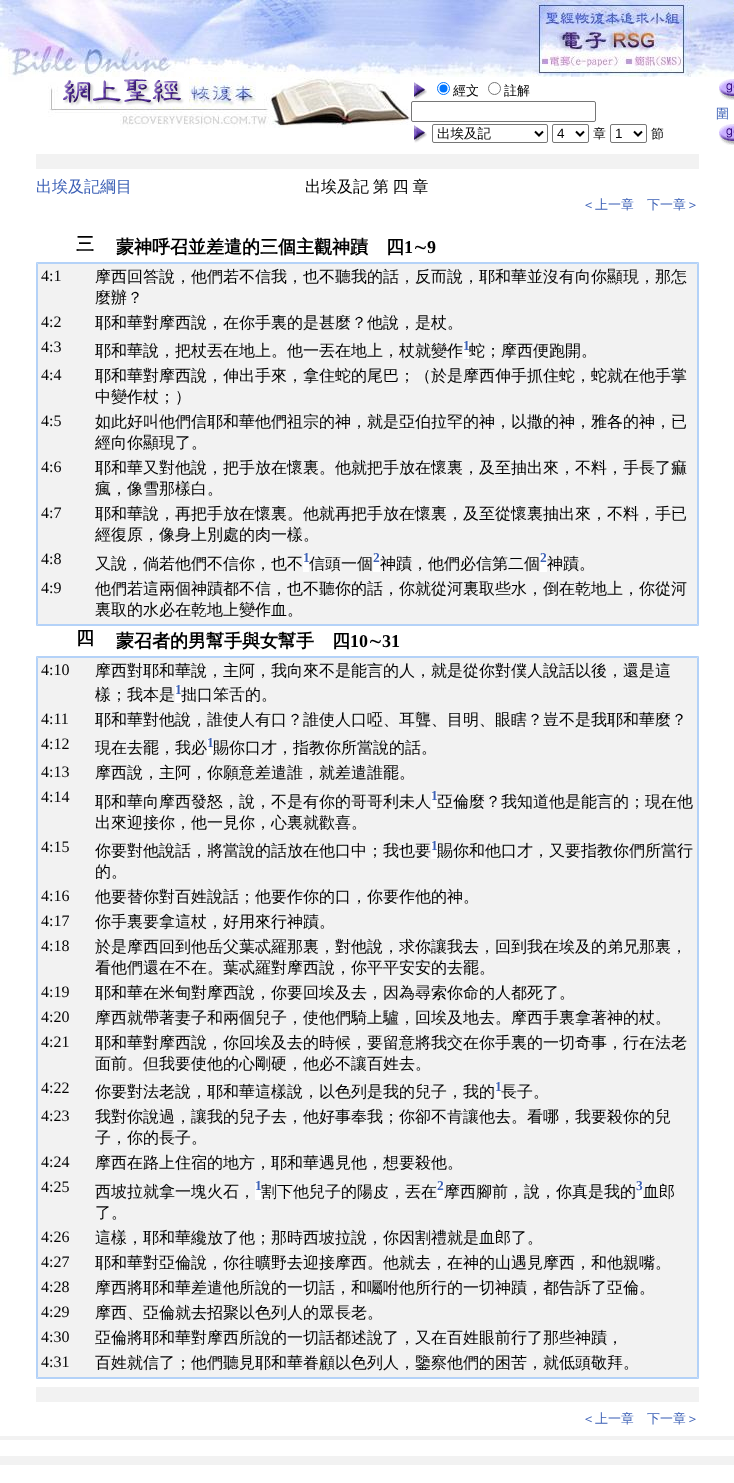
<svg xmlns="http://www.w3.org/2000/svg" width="734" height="1483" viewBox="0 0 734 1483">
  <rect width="100%" height="100%" fill="#fff"/>
  <image x="0" y="0" width="411" height="77" href="img/1.png"/>
  <image x="411" y="0" width="121" height="77" href="img/2.png"/>
  <image x="532" y="0" width="201" height="77" href="img/3.png"/>
  <image x="733" y="0" width="1" height="77" href="img/4.png"/>
  <image x="0" y="77" width="411" height="51" href="img/5.png"/>
  <image x="414" y="82" width="13" height="18" href="img/6.png"/>
  <circle cx="443.5" cy="88.5" r="6" fill="none" stroke="#0075ff"/>
  <circle cx="443.5" cy="88.5" r="4" fill="#0075ff"/>
  <circle cx="494.5" cy="88.5" r="6" fill="none" stroke="#767676"/>
  <rect x="411.5" y="101.5" width="184" height="20" rx="1.5" fill="none" stroke="#767676"/>
  <image x="719" y="79" width="15" height="21" href="img/7.png"/>
  <image x="414" y="125" width="13" height="18" href="img/6.png"/>
  <rect x="432.5" y="124.5" width="115" height="18" rx="1.5" fill="none" stroke="#767676"/>
  <path d="M535 131.5L539 135.5L543 131.5" fill="none" stroke="#000" stroke-width="2"/>
  <rect x="552.5" y="124.5" width="36" height="18" rx="1.5" fill="none" stroke="#767676"/>
  <path d="M576 131.5L580 135.5L584 131.5" fill="none" stroke="#000" stroke-width="2"/>
  <rect x="610.5" y="124.5" width="36" height="18" rx="1.5" fill="none" stroke="#767676"/>
  <path d="M634 131.5L638 135.5L642 131.5" fill="none" stroke="#000" stroke-width="2"/>
  <image x="719" y="124" width="15" height="21" href="img/7.png"/>
  <path d="M36 154h663v15H36z" fill="#f2f2f2"/>
  <path d="M38 264h659v360H38z" fill="#f2f2f2"/>
  <path d="M36.5 262.5h662v363H36.5z" fill="none" stroke="#b4d2f8"/>
  <path d="M37.5 263.5h660v361H37.5z" fill="none" stroke="#b4d2f8"/>
  <path d="M463 342h6v17H463z" fill="#fff"/>
  <path d="M303 555h6v17H303z" fill="#fff"/>
  <path d="M373 555h7v17H373z" fill="#fff"/>
  <path d="M540 555h7v17H540z" fill="#fff"/>
  <path d="M38 658h659v719H38z" fill="#f2f2f2"/>
  <path d="M36.5 656.5h662v722H36.5z" fill="none" stroke="#b4d2f8"/>
  <path d="M37.5 657.5h660v720H37.5z" fill="none" stroke="#b4d2f8"/>
  <path d="M175 686h6v17H175z" fill="#fff"/>
  <path d="M207 739h6v17H207z" fill="#fff"/>
  <path d="M431 793h6v17H431z" fill="#fff"/>
  <path d="M431 842h6v17H431z" fill="#fff"/>
  <path d="M495 1083h6v17H495z" fill="#fff"/>
  <path d="M255 1183h6v17H255z" fill="#fff"/>
  <path d="M437 1183h7v17H437z" fill="#fff"/>
  <path d="M636 1183h7v17H636z" fill="#fff"/>
  <path d="M36 1387h663v15H36z" fill="#f2f2f2"/>
  <path d="M0 1436h734v4H0z" fill="#f2f2f2"/>
  <path d="M0 1456h734v9H0z" fill="#f2f2f2"/>
  <g font-family="WenQuanYi Zen Hei" font-size="13" font-weight="500" fill="#000">
    <text x="453" y="95">經文</text>
    <text x="504" y="95">註解</text>
  </g>
  <text x="716" y="118" font-family="WenQuanYi Zen Hei" font-size="13" font-weight="500" fill="#3d61b6">圍</text>
  <text x="437" y="138" font-family="WenQuanYi Zen Hei" font-size="13.5" font-weight="500" fill="#000">出埃及記</text>
  <text x="557" y="138" font-family="Liberation Sans" font-size="13.5" fill="#000">4</text>
  <text x="593" y="138" font-family="WenQuanYi Zen Hei" font-size="13" font-weight="500" fill="#000">章</text>
  <text x="615" y="138" font-family="Liberation Sans" font-size="13.5" fill="#000">1</text>
  <text x="651" y="138" font-family="WenQuanYi Zen Hei" font-size="13" font-weight="500" fill="#000">節</text>
  <text x="36" y="192" font-family="WenQuanYi Zen Hei" font-size="16" font-weight="500" fill="#3d61b6">出埃及記綱目</text>
  <text x="305" y="192" word-spacing="-1" font-family="WenQuanYi Zen Hei" font-size="16" font-weight="500" fill="#000">出埃及記 第 四 章</text>
  <g font-family="WenQuanYi Zen Hei" font-size="13" font-weight="500" fill="#3d61b6">
    <text x="582" y="209">＜上一章</text>
    <text x="647" y="209">下一章＞</text>
  </g>
  <g font-family="WenQuanYi Zen Hei" font-size="18" font-weight="bold" fill="#000">
    <text x="76" y="250">三</text>
    <text x="116" y="253">蒙神呼召並差遣的三個主觀神蹟　四</text>
  </g>
  <text x="404" y="253" font-family="Liberation Serif" font-size="18" font-weight="bold" fill="#000">1</text>
  <text x="413" y="253" font-family="WenQuanYi Zen Hei" font-size="18" font-weight="bold" fill="#000">∼</text>
  <text x="427" y="253" font-family="Liberation Serif" font-size="18" font-weight="bold" fill="#000">9</text>
  <text x="41" y="281" font-family="Liberation Serif" font-size="16" fill="#000">4:1</text>
  <g font-family="WenQuanYi Zen Hei" font-size="16" font-weight="500" fill="#000">
    <text x="95" y="282">摩西回答說，他們若不信我，也不聽我的話，反而說，耶和華並沒有向你顯現，那怎</text>
    <text x="95" y="303">麼辦？</text>
  </g>
  <text x="41" y="327" font-family="Liberation Serif" font-size="16" fill="#000">4:2</text>
  <text x="95" y="328" font-family="WenQuanYi Zen Hei" font-size="16" font-weight="500" fill="#000">耶和華對摩西說，在你手裏的是甚麼？他說，是杖。</text>
  <text x="41" y="352" font-family="Liberation Serif" font-size="16" fill="#000">4:3</text>
  <text x="95" y="356" font-family="WenQuanYi Zen Hei" font-size="16" font-weight="500" fill="#000">耶和華說，把杖丟在地上。他一丟在地上，杖就變作</text>
  <text x="463" y="350" font-family="Liberation Serif" font-size="13.5" font-weight="bold" fill="#3d61b6">1</text>
  <text x="469" y="356" font-family="WenQuanYi Zen Hei" font-size="16" font-weight="500" fill="#000">蛇；摩西便跑開。</text>
  <text x="41" y="380" font-family="Liberation Serif" font-size="16" fill="#000">4:4</text>
  <g font-family="WenQuanYi Zen Hei" font-size="16" font-weight="500" fill="#000">
    <text x="95" y="381">耶和華對摩西說，伸出手來，拿住蛇的尾巴；（於是摩西伸手抓住蛇，蛇就在他手掌</text>
    <text x="95" y="402">中變作杖；）</text>
  </g>
  <text x="41" y="426" font-family="Liberation Serif" font-size="16" fill="#000">4:5</text>
  <g font-family="WenQuanYi Zen Hei" font-size="16" font-weight="500" fill="#000">
    <text x="95" y="427">如此好叫他們信耶和華他們祖宗的神，就是亞伯拉罕的神，以撒的神，雅各的神，已</text>
    <text x="95" y="448">經向你顯現了。</text>
  </g>
  <text x="41" y="472" font-family="Liberation Serif" font-size="16" fill="#000">4:6</text>
  <g font-family="WenQuanYi Zen Hei" font-size="16" font-weight="500" fill="#000">
    <text x="95" y="473">耶和華又對他說，把手放在懷裏。他就把手放在懷裏，及至抽出來，不料，手長了痲</text>
    <text x="95" y="494">瘋，像雪那樣白。</text>
  </g>
  <text x="41" y="518" font-family="Liberation Serif" font-size="16" fill="#000">4:7</text>
  <g font-family="WenQuanYi Zen Hei" font-size="16" font-weight="500" fill="#000">
    <text x="95" y="519">耶和華說，再把手放在懷裏。他就再把手放在懷裏，及至從懷裏抽出來，不料，手已</text>
    <text x="95" y="540">經復原，像身上別處的肉一樣。</text>
  </g>
  <text x="41" y="564" font-family="Liberation Serif" font-size="16" fill="#000">4:8</text>
  <text x="95" y="569" font-family="WenQuanYi Zen Hei" font-size="16" font-weight="500" fill="#000">又說，倘若他們不信你，也不</text>
  <text x="303" y="562" font-family="Liberation Serif" font-size="13.5" font-weight="bold" fill="#3d61b6">1</text>
  <text x="309" y="569" font-family="WenQuanYi Zen Hei" font-size="16" font-weight="500" fill="#000">信頭一個</text>
  <text x="373" y="562" font-family="Liberation Serif" font-size="13.5" font-weight="bold" fill="#3d61b6">2</text>
  <text x="380" y="569" font-family="WenQuanYi Zen Hei" font-size="16" font-weight="500" fill="#000">神蹟，他們必信第二個</text>
  <text x="540" y="562" font-family="Liberation Serif" font-size="13.5" font-weight="bold" fill="#3d61b6">2</text>
  <text x="547" y="569" font-family="WenQuanYi Zen Hei" font-size="16" font-weight="500" fill="#000">神蹟。</text>
  <text x="41" y="593" font-family="Liberation Serif" font-size="16" fill="#000">4:9</text>
  <g font-family="WenQuanYi Zen Hei" font-size="16" font-weight="500" fill="#000">
    <text x="95" y="594">他們若這兩個神蹟都不信，也不聽你的話，你就從河裏取些水，倒在乾地上，你從河</text>
    <text x="95" y="615">裏取的水必在乾地上變作血。</text>
  </g>
  <g font-family="WenQuanYi Zen Hei" font-size="18" font-weight="bold" fill="#000">
    <text x="76" y="644">四</text>
    <text x="116" y="647">蒙召者的男幫手與女幫手　四</text>
  </g>
  <text x="350" y="647" font-family="Liberation Serif" font-size="18" font-weight="bold" fill="#000">10</text>
  <text x="368" y="647" font-family="WenQuanYi Zen Hei" font-size="18" font-weight="bold" fill="#000">∼</text>
  <text x="382" y="647" font-family="Liberation Serif" font-size="18" font-weight="bold" fill="#000">31</text>
  <text x="41" y="675" font-family="Liberation Serif" font-size="16" fill="#000">4:10</text>
  <g font-family="WenQuanYi Zen Hei" font-size="16" font-weight="500" fill="#000">
    <text x="95" y="676">摩西對耶和華說，主阿，我向來不是能言的人，就是從你對僕人說話以後，還是這</text>
    <text x="95" y="700">樣；我本是</text>
  </g>
  <text x="175" y="694" font-family="Liberation Serif" font-size="13.5" font-weight="bold" fill="#3d61b6">1</text>
  <text x="181" y="700" font-family="WenQuanYi Zen Hei" font-size="16" font-weight="500" fill="#000">拙口笨舌的。</text>
  <text x="41" y="724" font-family="Liberation Serif" font-size="16" fill="#000">4:11</text>
  <text x="95" y="725" font-family="WenQuanYi Zen Hei" font-size="16" font-weight="500" fill="#000">耶和華對他說，誰使人有口？誰使人口啞、耳聾、目明、眼瞎？豈不是我耶和華麼？</text>
  <text x="41" y="749" font-family="Liberation Serif" font-size="16" fill="#000">4:12</text>
  <text x="95" y="753" font-family="WenQuanYi Zen Hei" font-size="16" font-weight="500" fill="#000">現在去罷，我必</text>
  <text x="207" y="747" font-family="Liberation Serif" font-size="13.5" font-weight="bold" fill="#3d61b6">1</text>
  <text x="213" y="753" font-family="WenQuanYi Zen Hei" font-size="16" font-weight="500" fill="#000">賜你口才，指教你所當說的話。</text>
  <text x="41" y="777" font-family="Liberation Serif" font-size="16" fill="#000">4:13</text>
  <text x="95" y="778" font-family="WenQuanYi Zen Hei" font-size="16" font-weight="500" fill="#000">摩西說，主阿，你願意差遣誰，就差遣誰罷。</text>
  <text x="41" y="802" font-family="Liberation Serif" font-size="16" fill="#000">4:14</text>
  <text x="95" y="807" font-family="WenQuanYi Zen Hei" font-size="16" font-weight="500" fill="#000">耶和華向摩西發怒，說，不是有你的哥哥利未人</text>
  <text x="431" y="800" font-family="Liberation Serif" font-size="13.5" font-weight="bold" fill="#3d61b6">1</text>
  <g font-family="WenQuanYi Zen Hei" font-size="16" font-weight="500" fill="#000">
    <text x="437" y="807">亞倫麼？我知道他是能言的；現在他</text>
    <text x="95" y="828">出來迎接你，他一見你，心裏就歡喜。</text>
  </g>
  <text x="41" y="852" font-family="Liberation Serif" font-size="16" fill="#000">4:15</text>
  <text x="95" y="856" font-family="WenQuanYi Zen Hei" font-size="16" font-weight="500" fill="#000">你要對他說話，將當說的話放在他口中；我也要</text>
  <text x="431" y="850" font-family="Liberation Serif" font-size="13.5" font-weight="bold" fill="#3d61b6">1</text>
  <g font-family="WenQuanYi Zen Hei" font-size="16" font-weight="500" fill="#000">
    <text x="437" y="856">賜你和他口才，又要指教你們所當行</text>
    <text x="95" y="877">的。</text>
  </g>
  <text x="41" y="901" font-family="Liberation Serif" font-size="16" fill="#000">4:16</text>
  <text x="95" y="902" font-family="WenQuanYi Zen Hei" font-size="16" font-weight="500" fill="#000">他要替你對百姓說話；他要作你的口，你要作他的神。</text>
  <text x="41" y="926" font-family="Liberation Serif" font-size="16" fill="#000">4:17</text>
  <text x="95" y="927" font-family="WenQuanYi Zen Hei" font-size="16" font-weight="500" fill="#000">你手裏要拿這杖，好用來行神蹟。</text>
  <text x="41" y="951" font-family="Liberation Serif" font-size="16" fill="#000">4:18</text>
  <g font-family="WenQuanYi Zen Hei" font-size="16" font-weight="500" fill="#000">
    <text x="95" y="952">於是摩西回到他岳父葉忒羅那裏，對他說，求你讓我去，回到我在埃及的弟兄那裏，</text>
    <text x="95" y="973">看他們還在不在。葉忒羅對摩西說，你平平安安的去罷。</text>
  </g>
  <text x="41" y="997" font-family="Liberation Serif" font-size="16" fill="#000">4:19</text>
  <text x="95" y="998" font-family="WenQuanYi Zen Hei" font-size="16" font-weight="500" fill="#000">耶和華在米甸對摩西說，你要回埃及去，因為尋索你命的人都死了。</text>
  <text x="41" y="1022" font-family="Liberation Serif" font-size="16" fill="#000">4:20</text>
  <text x="95" y="1023" font-family="WenQuanYi Zen Hei" font-size="16" font-weight="500" fill="#000">摩西就帶著妻子和兩個兒子，使他們騎上驢，回埃及地去。摩西手裏拿著神的杖。</text>
  <text x="41" y="1047" font-family="Liberation Serif" font-size="16" fill="#000">4:21</text>
  <g font-family="WenQuanYi Zen Hei" font-size="16" font-weight="500" fill="#000">
    <text x="95" y="1048">耶和華對摩西說，你回埃及去的時候，要留意將我交在你手裏的一切奇事，行在法老</text>
    <text x="95" y="1069">面前。但我要使他的心剛硬，他必不讓百姓去。</text>
  </g>
  <text x="41" y="1093" font-family="Liberation Serif" font-size="16" fill="#000">4:22</text>
  <text x="95" y="1097" font-family="WenQuanYi Zen Hei" font-size="16" font-weight="500" fill="#000">你要對法老說，耶和華這樣說，以色列是我的兒子，我的</text>
  <text x="495" y="1091" font-family="Liberation Serif" font-size="13.5" font-weight="bold" fill="#3d61b6">1</text>
  <text x="501" y="1097" font-family="WenQuanYi Zen Hei" font-size="16" font-weight="500" fill="#000">長子。</text>
  <text x="41" y="1121" font-family="Liberation Serif" font-size="16" fill="#000">4:23</text>
  <g font-family="WenQuanYi Zen Hei" font-size="16" font-weight="500" fill="#000">
    <text x="95" y="1122">我對你說過，讓我的兒子去，他好事奉我；你卻不肯讓他去。看哪，我要殺你的兒</text>
    <text x="95" y="1143">子，你的長子。</text>
  </g>
  <text x="41" y="1167" font-family="Liberation Serif" font-size="16" fill="#000">4:24</text>
  <text x="95" y="1168" font-family="WenQuanYi Zen Hei" font-size="16" font-weight="500" fill="#000">摩西在路上住宿的地方，耶和華遇見他，想要殺他。</text>
  <text x="41" y="1192" font-family="Liberation Serif" font-size="16" fill="#000">4:25</text>
  <text x="95" y="1197" font-family="WenQuanYi Zen Hei" font-size="16" font-weight="500" fill="#000">西坡拉就拿一塊火石，</text>
  <text x="255" y="1190" font-family="Liberation Serif" font-size="13.5" font-weight="bold" fill="#3d61b6">1</text>
  <text x="261" y="1197" font-family="WenQuanYi Zen Hei" font-size="16" font-weight="500" fill="#000">割下他兒子的陽皮，丟在</text>
  <text x="437" y="1190" font-family="Liberation Serif" font-size="13.5" font-weight="bold" fill="#3d61b6">2</text>
  <text x="444" y="1197" font-family="WenQuanYi Zen Hei" font-size="16" font-weight="500" fill="#000">摩西腳前，說，你真是我的</text>
  <text x="636" y="1190" font-family="Liberation Serif" font-size="13.5" font-weight="bold" fill="#3d61b6">3</text>
  <g font-family="WenQuanYi Zen Hei" font-size="16" font-weight="500" fill="#000">
    <text x="643" y="1197">血郎</text>
    <text x="95" y="1218">了。</text>
  </g>
  <text x="41" y="1242" font-family="Liberation Serif" font-size="16" fill="#000">4:26</text>
  <text x="95" y="1243" font-family="WenQuanYi Zen Hei" font-size="16" font-weight="500" fill="#000">這樣，耶和華纔放了他；那時西坡拉說，你因割禮就是血郎了。</text>
  <text x="41" y="1267" font-family="Liberation Serif" font-size="16" fill="#000">4:27</text>
  <text x="95" y="1268" font-family="WenQuanYi Zen Hei" font-size="16" font-weight="500" fill="#000">耶和華對亞倫說，你往曠野去迎接摩西。他就去，在神的山遇見摩西，和他親嘴。</text>
  <text x="41" y="1292" font-family="Liberation Serif" font-size="16" fill="#000">4:28</text>
  <text x="95" y="1293" font-family="WenQuanYi Zen Hei" font-size="16" font-weight="500" fill="#000">摩西將耶和華差遣他所說的一切話，和囑咐他所行的一切神蹟，都告訴了亞倫。</text>
  <text x="41" y="1317" font-family="Liberation Serif" font-size="16" fill="#000">4:29</text>
  <text x="95" y="1318" font-family="WenQuanYi Zen Hei" font-size="16" font-weight="500" fill="#000">摩西、亞倫就去招聚以色列人的眾長老。</text>
  <text x="41" y="1342" font-family="Liberation Serif" font-size="16" fill="#000">4:30</text>
  <text x="95" y="1343" font-family="WenQuanYi Zen Hei" font-size="16" font-weight="500" fill="#000">亞倫將耶和華對摩西所說的一切話都述說了，又在百姓眼前行了那些神蹟，</text>
  <text x="41" y="1367" font-family="Liberation Serif" font-size="16" fill="#000">4:31</text>
  <text x="95" y="1368" font-family="WenQuanYi Zen Hei" font-size="16" font-weight="500" fill="#000">百姓就信了；他們聽見耶和華眷顧以色列人，鑒察他們的困苦，就低頭敬拜。</text>
  <g font-family="WenQuanYi Zen Hei" font-size="13" font-weight="500" fill="#3d61b6">
    <text x="582" y="1423">＜上一章</text>
    <text x="647" y="1423">下一章＞</text>
  </g>
</svg>
